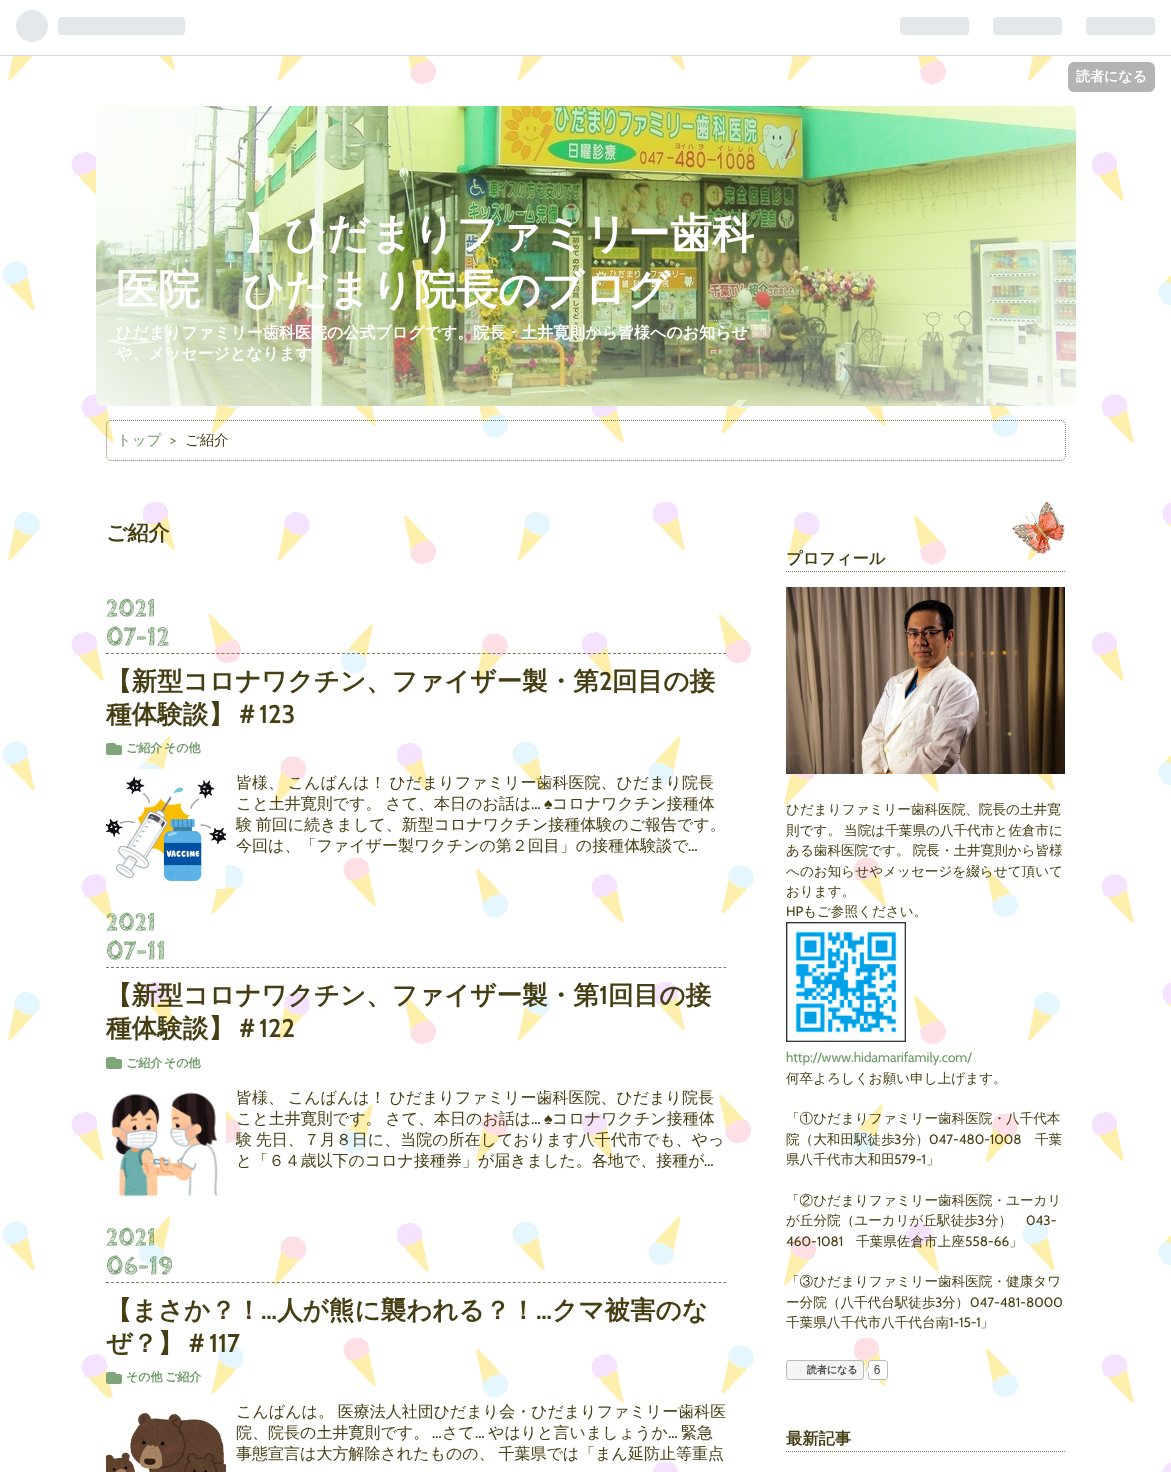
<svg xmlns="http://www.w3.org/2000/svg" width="1171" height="1472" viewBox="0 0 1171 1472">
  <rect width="100%" height="100%" fill="#fff"/>
  <image x="0" y="56" width="1171" height="1416" href="img/1.png"/>
  <path d="M0 55h1171v1H0z" fill="#d2d8dd"/>
  <image x="16" y="10" width="169" height="32" href="img/2.png"/>
  <image x="900" y="17" width="255" height="18" href="img/3.png"/>
  <rect x="1068" y="62" width="87" height="30" rx="6" fill="#b1b3b5"/>
  <image x="96" y="106" width="980" height="300" href="img/4.png"/>
  <path d="M111 420.5H1061C1063.5 420.5 1065.5 422.5 1065.5 425V456C1065.5 458.5 1063.5 460.5 1061 460.5H111C108.5 460.5 106.5 458.5 106.5 456V425C106.5 422.5 108.5 420.5 111 420.5Z" fill="none" stroke="#817b56" stroke-dasharray="1 1"/>
  <path d="M106 653.5H726" fill="none" stroke="#817b56" stroke-dasharray="3 2.02"/>
  <image x="106" y="743" width="16" height="12" href="img/5.png"/>
  <image x="106" y="769" width="120" height="120" href="img/6.png"/>
  <path d="M106 967.5H726" fill="none" stroke="#817b56" stroke-dasharray="3 2.02"/>
  <image x="106" y="1057" width="16" height="12" href="img/5.png"/>
  <image x="110" y="1092" width="116" height="105" href="img/7.png"/>
  <path d="M106 1282.5H726" fill="none" stroke="#817b56" stroke-dasharray="3 2.02"/>
  <image x="106" y="1372" width="16" height="12" href="img/8.png"/>
  <image x="106" y="1398" width="120" height="74" href="img/9.png"/>
  <image x="1012" y="501" width="53" height="53" href="img/10.png"/>
  <path d="M786 571.5H1066" fill="none" stroke="#817b56" stroke-dasharray="1 1"/>
  <image x="786" y="587" width="279" height="187" href="img/11.png"/>
  <image x="786" y="922" width="120" height="120" href="img/12.png"/>
  <image x="786" y="1360" width="102" height="20" href="img/13.png"/>
  <path d="M786 1451.5H1066" fill="none" stroke="#817b56" stroke-dasharray="1 1"/>
  <text x="1076" y="81" font-family="WenQuanYi Zen Hei" font-size="14" font-weight="bold" fill="#fff">読者になる</text>
  <g font-family="WenQuanYi Zen Hei" font-size="42" font-weight="bold" fill="#fff">
    <text x="242" y="248">】ひだまりファミリー歯科</text>
    <text x="116" y="304">医院　ひだまり院長のブログ</text>
  </g>
  <g font-family="WenQuanYi Zen Hei" font-size="16" font-weight="bold" fill="#fff">
    <text x="116" y="338">ひだまりファミリー歯科医院の公式ブログです。院長・土井寛則から皆様へのお知らせ</text>
    <text x="116" y="359">や、メッセージとなります</text>
  </g>
  <text x="117" y="445" font-family="WenQuanYi Zen Hei" font-size="14.5" font-weight="500" fill="#6c9865">トップ</text>
  <text x="170" y="445" font-family="Cabin" font-size="14.5" fill="#7e785a">&gt;</text>
  <text x="185" y="445" font-family="WenQuanYi Zen Hei" font-size="14.5" font-weight="500" fill="#463e13">ご紹介</text>
  <text x="106" y="540" font-family="WenQuanYi Zen Hei" font-size="21" font-weight="bold" fill="#463e13">ご紹介</text>
  <text x="106" y="616" font-family="Cabin Sketch" font-size="24" font-weight="bold" fill="#6c9865">2021</text>
  <text x="106" y="645" font-family="Cabin Sketch" font-size="25.6" font-weight="bold" fill="#6c9865">07-12</text>
  <text x="106" y="690" font-family="WenQuanYi Zen Hei" font-size="25.6" font-weight="bold" fill="#463e13">【新型コロナワクチン、ファイザー製・第</text>
  <text x="599" y="690" font-family="Cabin" font-size="25.6" font-weight="600" fill="#463e13">2</text>
  <g font-family="WenQuanYi Zen Hei" font-size="25.6" font-weight="bold" fill="#463e13">
    <text x="612" y="690">回目の接</text>
    <text x="106" y="723">種体験談】＃</text>
  </g>
  <text x="259" y="723" font-family="Cabin" font-size="25.6" font-weight="600" fill="#463e13">123</text>
  <g font-family="WenQuanYi Zen Hei" font-size="12" font-weight="bold" fill="#6c9865">
    <text x="126" y="752">ご紹介</text>
    <text x="164" y="752">その他</text>
  </g>
  <g font-family="WenQuanYi Zen Hei" font-size="16" font-weight="500" fill="#463e13">
    <text x="236" y="788" word-spacing="-1">皆様、 こんばんは！ ひだまりファミリー歯科医院、ひだまり院長</text>
    <text x="236" y="809" word-spacing="-1">こと土井寛則です。 さて、本日のお話は</text>
  </g>
  <text x="531" y="809" font-family="Cabin" font-size="16" fill="#463e13">…</text>
  <text x="544" y="809" font-family="Liberation Sans" font-size="16" fill="#463e13">♠</text>
  <g font-family="WenQuanYi Zen Hei" font-size="16" font-weight="500" fill="#463e13">
    <text x="552" y="809">コロナワクチン接種体</text>
    <text x="236" y="830" word-spacing="-1">験 前回に続きまして、新型コロナワクチン接種体験のご報告です。</text>
    <text x="236" y="851">今回は、「ファイザー製ワクチンの第２回目」の接種体験談で</text>
  </g>
  <text x="688" y="851" font-family="Cabin" font-size="16" fill="#463e13">…</text>
  <text x="106" y="930" font-family="Cabin Sketch" font-size="24" font-weight="bold" fill="#6c9865">2021</text>
  <text x="106" y="959" font-family="Cabin Sketch" font-size="25.6" font-weight="bold" fill="#6c9865">07-11</text>
  <text x="106" y="1004" font-family="WenQuanYi Zen Hei" font-size="25.6" font-weight="bold" fill="#463e13">【新型コロナワクチン、ファイザー製・第</text>
  <text x="599" y="1004" font-family="Cabin" font-size="25.6" font-weight="600" fill="#463e13">1</text>
  <g font-family="WenQuanYi Zen Hei" font-size="25.6" font-weight="bold" fill="#463e13">
    <text x="608" y="1004">回目の接</text>
    <text x="106" y="1037">種体験談】＃</text>
  </g>
  <text x="259" y="1037" font-family="Cabin" font-size="25.6" font-weight="600" fill="#463e13">122</text>
  <g font-family="WenQuanYi Zen Hei" font-size="12" font-weight="bold" fill="#6c9865">
    <text x="126" y="1067">ご紹介</text>
    <text x="164" y="1067">その他</text>
  </g>
  <g font-family="WenQuanYi Zen Hei" font-size="16" font-weight="500" fill="#463e13">
    <text x="236" y="1103" word-spacing="-1">皆様、 こんばんは！ ひだまりファミリー歯科医院、ひだまり院長</text>
    <text x="236" y="1124" word-spacing="-1">こと土井寛則です。 さて、本日のお話は</text>
  </g>
  <text x="531" y="1124" font-family="Cabin" font-size="16" fill="#463e13">…</text>
  <text x="544" y="1124" font-family="Liberation Sans" font-size="16" fill="#463e13">♠</text>
  <g font-family="WenQuanYi Zen Hei" font-size="16" font-weight="500" fill="#463e13">
    <text x="552" y="1124">コロナワクチン接種体</text>
    <text x="236" y="1145" word-spacing="-1">験 先日、７月８日に、当院の所在しております八千代市でも、やっ</text>
    <text x="236" y="1166">と「６４歳以下のコロナ接種券」が届きました。各地で、接種が</text>
  </g>
  <text x="704" y="1166" font-family="Cabin" font-size="16" fill="#463e13">…</text>
  <text x="106" y="1245" font-family="Cabin Sketch" font-size="24" font-weight="bold" fill="#6c9865">2021</text>
  <text x="106" y="1274" font-family="Cabin Sketch" font-size="25.6" font-weight="bold" fill="#6c9865">06-19</text>
  <text x="106" y="1319" font-family="WenQuanYi Zen Hei" font-size="25.6" font-weight="bold" fill="#463e13">【まさか？！</text>
  <text x="261" y="1319" font-family="Cabin" font-size="25.6" font-weight="600" fill="#463e13">…</text>
  <text x="277" y="1319" font-family="WenQuanYi Zen Hei" font-size="25.6" font-weight="bold" fill="#463e13">人が熊に襲われる？！</text>
  <text x="536" y="1319" font-family="Cabin" font-size="25.6" font-weight="600" fill="#463e13">…</text>
  <g font-family="WenQuanYi Zen Hei" font-size="25.6" font-weight="bold" fill="#463e13">
    <text x="552" y="1319">クマ被害のな</text>
    <text x="106" y="1352">ぜ？】＃</text>
  </g>
  <text x="209" y="1352" font-family="Cabin" font-size="25.6" font-weight="600" fill="#463e13">117</text>
  <g font-family="WenQuanYi Zen Hei" font-size="12" font-weight="bold" fill="#6c9865">
    <text x="126" y="1381">その他</text>
    <text x="165" y="1381">ご紹介</text>
  </g>
  <g font-family="WenQuanYi Zen Hei" font-size="16" font-weight="500" fill="#463e13">
    <text x="236" y="1417" word-spacing="-1">こんばんは。 医療法人社団ひだまり会・ひだまりファミリー歯科医</text>
    <text x="236" y="1438">院、院長の土井寛則です。</text>
  </g>
  <text x="432" y="1438" font-family="Cabin" font-size="16" fill="#463e13">…</text>
  <text x="442" y="1438" font-family="WenQuanYi Zen Hei" font-size="16" font-weight="500" fill="#463e13">さて</text>
  <text x="475" y="1438" font-family="Cabin" font-size="16" fill="#463e13">…</text>
  <text x="488" y="1438" font-family="WenQuanYi Zen Hei" font-size="16" font-weight="500" fill="#463e13">やはりと言いましょうか</text>
  <text x="668" y="1438" font-family="Cabin" font-size="16" fill="#463e13">…</text>
  <g font-family="WenQuanYi Zen Hei" font-size="16" font-weight="500" fill="#463e13">
    <text x="681" y="1438">緊急</text>
    <text x="236" y="1459" word-spacing="-1">事態宣言は大方解除されたものの、 千葉県では「まん延防止等重点</text>
  </g>
  <text x="786" y="564" font-family="WenQuanYi Zen Hei" font-size="16.25" font-weight="bold" fill="#463e13">プロフィール</text>
  <g font-family="WenQuanYi Zen Hei" font-size="13.6" font-weight="500" fill="#463e13">
    <text x="786" y="814">ひだまりファミリー歯科医院、院長の土井寛</text>
    <text x="786" y="835" word-spacing="-1">則です。 当院は千葉県の八千代市と佐倉市に</text>
    <text x="786" y="855" word-spacing="-1">ある歯科医院です。 院長・土井寛則から皆様</text>
    <text x="786" y="876">へのお知らせやメッセージを綴らせて頂いて</text>
    <text x="786" y="896">おります。</text>
  </g>
  <text x="786" y="916" font-family="Cabin" font-size="13.6" fill="#463e13">HP</text>
  <text x="803" y="916" font-family="WenQuanYi Zen Hei" font-size="13.6" font-weight="500" fill="#463e13">もご参照ください。</text>
  <text x="786" y="1062" font-family="Cabin" font-size="13.6" fill="#6c9865">http://www.hidamarifamily.com/</text>
  <g font-family="WenQuanYi Zen Hei" font-size="13.6" font-weight="500" fill="#463e13">
    <text x="786" y="1083">何卒よろしくお願い申し上げます。</text>
    <text x="786" y="1123">「①ひだまりファミリー歯科医院・八千代本</text>
    <text x="786" y="1144">院（大和田駅徒歩</text>
  </g>
  <text x="894" y="1144" font-family="Cabin" font-size="13.6" fill="#463e13">3</text>
  <text x="902" y="1144" font-family="WenQuanYi Zen Hei" font-size="13.6" font-weight="500" fill="#463e13">分）</text>
  <text x="929" y="1144" font-family="Cabin" font-size="13.6" fill="#463e13">047-480-1008</text>
  <g font-family="WenQuanYi Zen Hei" font-size="13.6" font-weight="500" fill="#463e13">
    <text x="1035" y="1144">千葉</text>
    <text x="786" y="1164">県八千代市大和田</text>
  </g>
  <text x="894" y="1164" font-family="Cabin" font-size="13.6" fill="#463e13">579-1</text>
  <g font-family="WenQuanYi Zen Hei" font-size="13.6" font-weight="500" fill="#463e13">
    <text x="926" y="1164">」</text>
    <text x="786" y="1205">「②ひだまりファミリー歯科医院・ユーカリ</text>
    <text x="786" y="1225">が丘分院（ユーカリが丘駅徒歩</text>
  </g>
  <text x="977" y="1225" font-family="Cabin" font-size="13.6" fill="#463e13">3</text>
  <text x="985" y="1225" font-family="WenQuanYi Zen Hei" font-size="13.6" font-weight="500" fill="#463e13">分）</text>
  <g font-family="Cabin" font-size="13.6" fill="#463e13">
    <text x="1026" y="1225">043-</text>
    <text x="786" y="1246">460-1081</text>
  </g>
  <text x="856" y="1246" font-family="WenQuanYi Zen Hei" font-size="13.6" font-weight="500" fill="#463e13">千葉県佐倉市上座</text>
  <text x="965" y="1246" font-family="Cabin" font-size="13.6" fill="#463e13">558-66</text>
  <g font-family="WenQuanYi Zen Hei" font-size="13.6" font-weight="500" fill="#463e13">
    <text x="1009" y="1246">」</text>
    <text x="786" y="1286">「③ひだまりファミリー歯科医院・健康タワ</text>
    <text x="786" y="1307">ー分院（八千代台駅徒歩</text>
  </g>
  <text x="935" y="1307" font-family="Cabin" font-size="13.6" fill="#463e13">3</text>
  <text x="942" y="1307" font-family="WenQuanYi Zen Hei" font-size="13.6" font-weight="500" fill="#463e13">分）</text>
  <text x="970" y="1307" font-family="Cabin" font-size="13.6" fill="#463e13">047-481-8000</text>
  <text x="786" y="1327" font-family="WenQuanYi Zen Hei" font-size="13.6" font-weight="500" fill="#463e13">千葉県八千代市八千代台南</text>
  <text x="949" y="1327" font-family="Cabin" font-size="13.6" fill="#463e13">1-15-1</text>
  <text x="980" y="1327" font-family="WenQuanYi Zen Hei" font-size="13.6" font-weight="500" fill="#463e13">」</text>
  <text x="786" y="1444" font-family="WenQuanYi Zen Hei" font-size="16.25" font-weight="bold" fill="#463e13">最新記事</text>
</svg>
